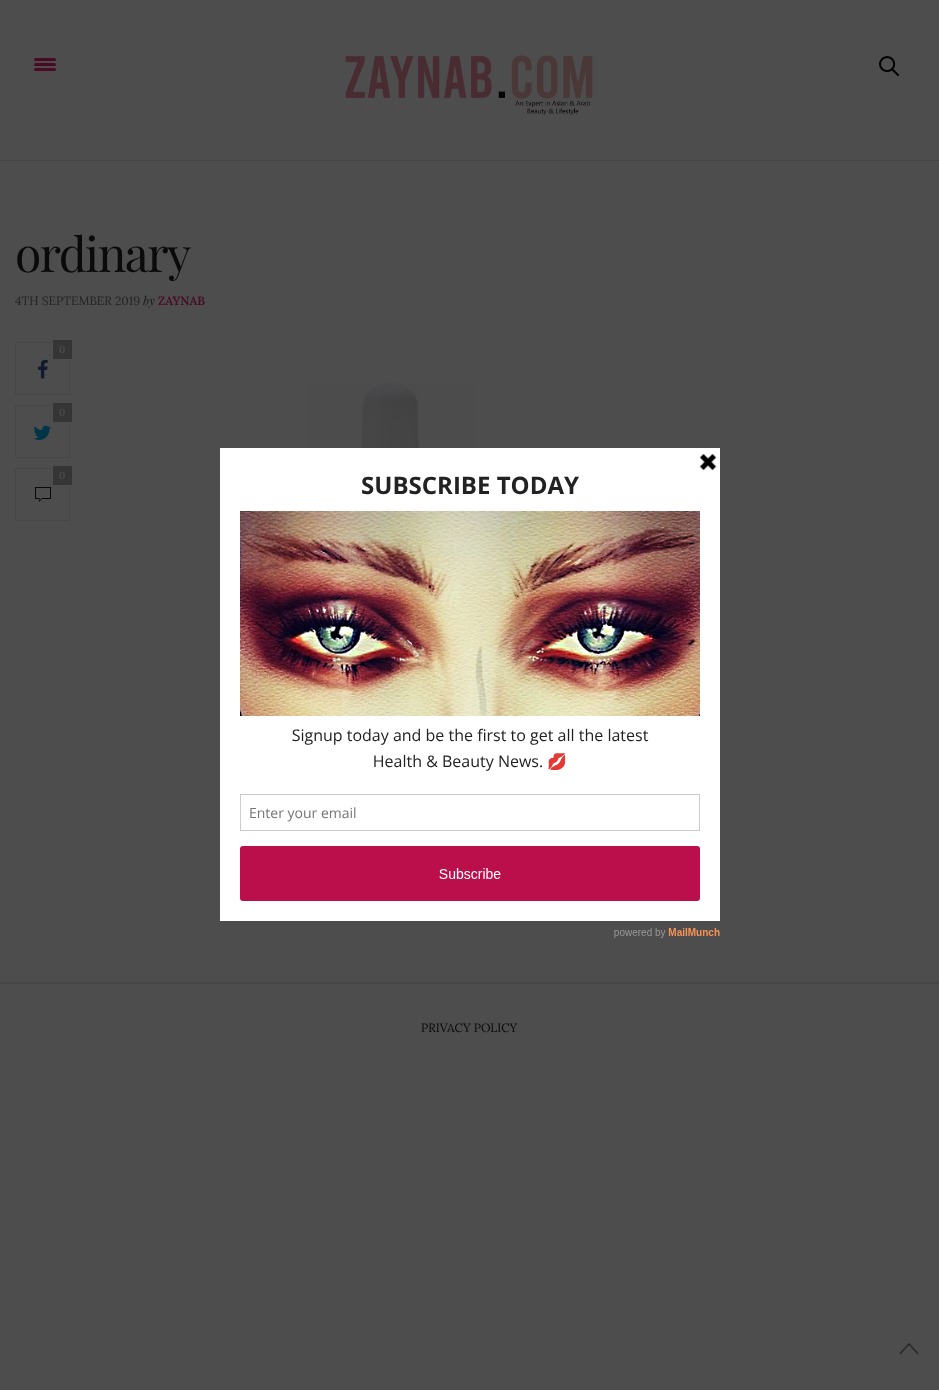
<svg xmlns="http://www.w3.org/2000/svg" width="939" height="1390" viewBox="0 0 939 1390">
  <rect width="100%" height="100%" fill="#4d4d4d"/>
  <path d="M0 160h939v1H0z" fill="#454545"/>
  <rect x="34" y="58" width="22" height="3" rx="1.5" fill="#480b23"/>
  <rect x="34" y="63" width="22" height="3" rx="1.5" fill="#480b23"/>
  <rect x="34" y="68" width="22" height="3" rx="1.5" fill="#480b23"/>
  <image x="345" y="55" width="248" height="60" href="img/1.png"/>
  <image x="879" y="56" width="20" height="20" href="img/2.png"/>
  <path d="M15.5 342.5h54v52H15.5z" fill="none" stroke="#464646"/>
  <path d="M53 340h19v19H53z" fill="#353535"/>
  <path d="M69 359h3v1H69z" fill="#4d4d4d"/>
  <path d="M52 340h1v3H52z" fill="#4d4d4d"/>
  <image x="38" y="359" width="10" height="20" href="img/3.png"/>
  <path d="M15.5 405.5h54v52H15.5z" fill="none" stroke="#464646"/>
  <path d="M53 403h19v19H53z" fill="#353535"/>
  <path d="M69 422h3v1H69z" fill="#4d4d4d"/>
  <path d="M52 403h1v3H52z" fill="#4d4d4d"/>
  <image x="33" y="425" width="18" height="15" href="img/4.png"/>
  <image x="35" y="487" width="16" height="15" href="img/5.png"/>
  <path d="M15.5 468.5h54v52H15.5z" fill="none" stroke="#464646"/>
  <path d="M53 466h19v19H53z" fill="#353535"/>
  <path d="M69 485h3v1H69z" fill="#4d4d4d"/>
  <path d="M52 466h1v3H52z" fill="#4d4d4d"/>
  <image x="307" y="383" width="167" height="65" href="img/6.png"/>
  <path d="M0 982h939v2H0z" fill="#454545"/>
  <image x="899" y="1343" width="20" height="12" href="img/7.png"/>
  <image x="220" y="448" width="500" height="490" href="img/8.png"/>
  <text x="15" y="272" font-family="Playfair Display" font-size="48" letter-spacing="-1.5" fill="#0a0a0a">ordinary</text>
  <text x="15" y="305" font-family="Lora" font-size="12" fill="#232323">4TH SEPTEMBER 2019</text>
  <text x="143" y="305" font-family="Playfair Display" font-size="12" font-style="italic" fill="#191919">by</text>
  <text x="158" y="305" font-family="Lora" font-size="12" font-weight="600" fill="#480b23">ZAYNAB</text>
  <g font-family="Lora" font-size="10" font-weight="600" fill="#4d4d4d">
    <text x="59" y="353">0</text>
    <text x="59" y="416">0</text>
    <text x="59" y="479">0</text>
  </g>
  <text x="421" y="1032" font-family="Lora" font-size="12" fill="#0a0a0a">PRIVACY POLICY</text>
</svg>
